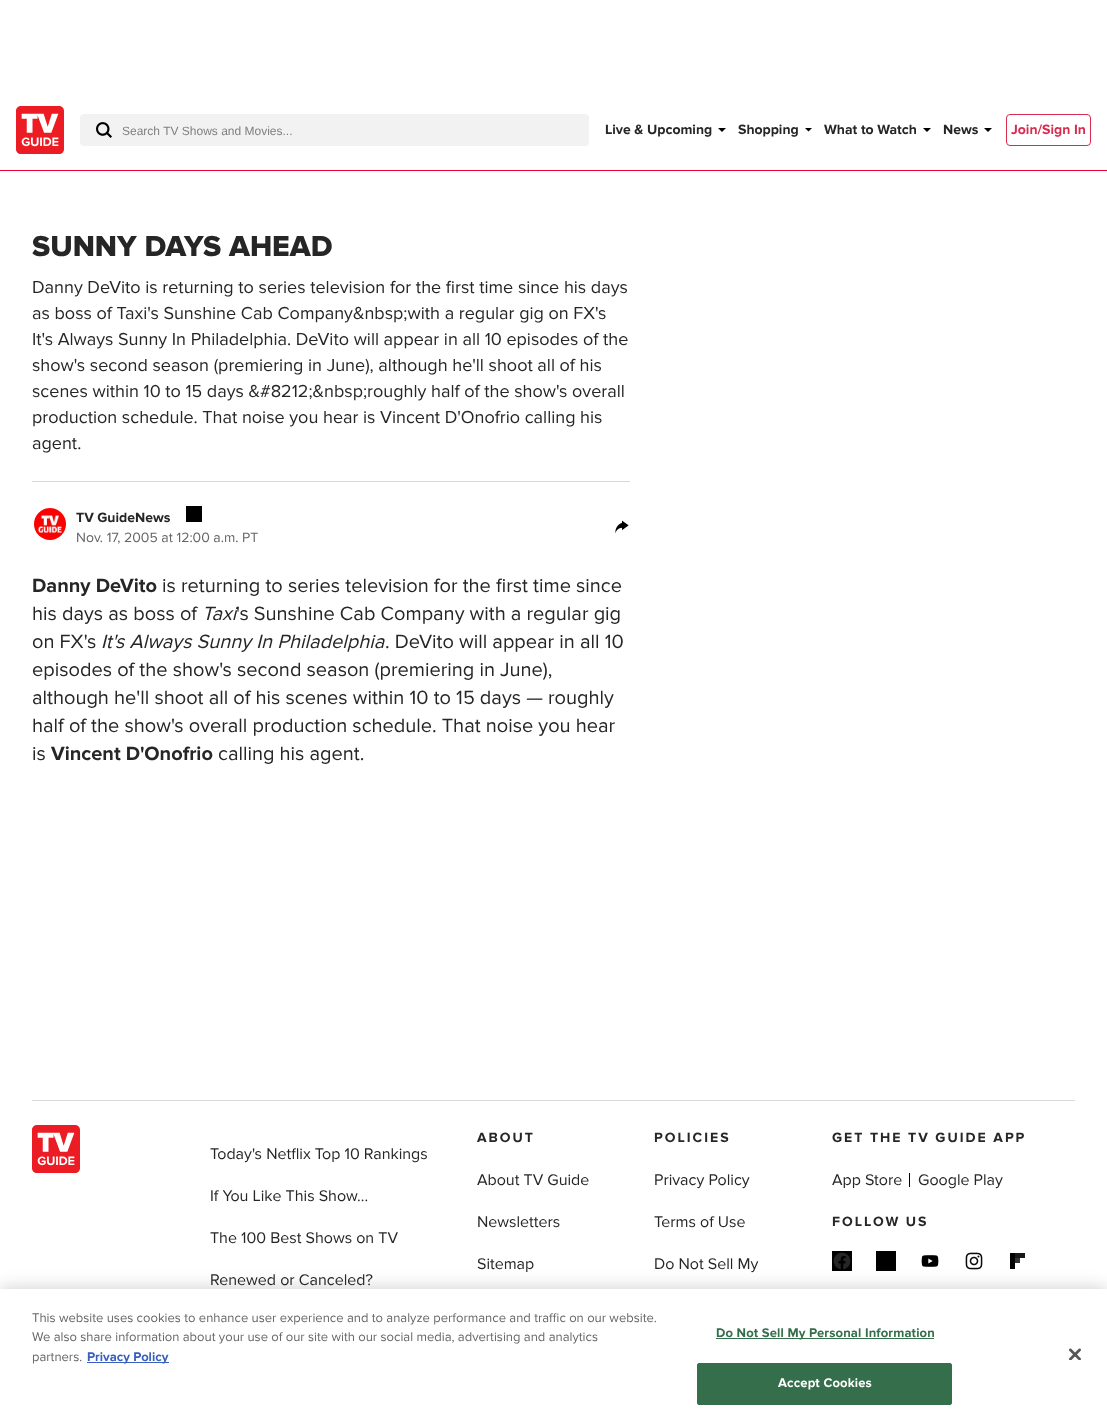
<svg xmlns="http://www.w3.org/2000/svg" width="1107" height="1425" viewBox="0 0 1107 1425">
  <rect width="100%" height="100%" fill="#fff"/>
  <path d="M0 170h1107v1H0z" fill="#eb0036"/>
  <image x="16" y="106" width="48" height="48" href="img/1.png"/>
  <rect x="80" y="114" width="509" height="32" rx="4" fill="#f2f2f2"/>
  <image x="96" y="122" width="16" height="16" href="img/2.png"/>
  <path d="M718 128L722 132L726 128Z" fill="#000" fill-rule="evenodd"/>
  <path d="M812 128L808.5 131.5L805 128Z" fill="#000"/>
  <path d="M923 128L927 132L931 128Z" fill="#000" fill-rule="evenodd"/>
  <path d="M984 128L988 132L992 128Z" fill="#000" fill-rule="evenodd"/>
  <rect x="1006.5" y="114.5" width="84" height="31" rx="3.5" fill="none" stroke="#d82b4e"/>
  <path d="M32 481h598v1H32z" fill="#d8d8d8"/>
  <image x="34" y="508" width="32" height="32" href="img/3.png"/>
  <path d="M186 506h16v16H186z" fill="#000"/>
  <image x="615" y="520" width="14" height="14" href="img/4.png"/>
  <path d="M32 1100h1043v1H32z" fill="#d8d8d8"/>
  <image x="32" y="1125" width="48" height="48" href="img/1.png"/>
  <path d="M909 1173h1v14H909z" fill="#000"/>
  <image x="832" y="1251" width="20" height="20" href="img/5.png"/>
  <path d="M876 1251h20v20H876z" fill="#000"/>
  <image x="921" y="1255" width="18" height="12" href="img/6.png"/>
  <image x="965" y="1252" width="18" height="18" href="img/7.png"/>
  <image x="1010" y="1253" width="15" height="16" href="img/8.png"/>
  <path d="M0 1289h1107v136H0z" fill="#00000033" filter="blur(9px)"/>
  <path d="M0 1289h1107v136H0z" fill="#fff"/>
  <path d="M87 1362h82v1H87z" fill="#3860be"/>
  <path d="M716 1338h218v1H716z" fill="#346e4a"/>
  <rect x="697.5" y="1363.5" width="254" height="41" rx="1.5" fill="#346e4a" stroke="#346e4a"/>
  <image x="1069" y="1348" width="12" height="12" href="img/9.png"/>
  <text x="122" y="135" font-family="Liberation Sans" font-size="12" fill="#808080">Search TV Shows and Movies...</text>
  <g font-family="Proxima Nova" font-size="14" font-weight="bold" fill="#262626">
    <text x="605" y="134">Live &amp; Upcoming</text>
    <text x="738" y="134">Shopping</text>
    <text x="824" y="134">What to Watch</text>
    <text x="943" y="134">News</text>
  </g>
  <text x="1011" y="134" font-family="Proxima Nova" font-size="14" font-weight="bold" fill="#d82b4e">Join/Sign In</text>
  <text x="32" y="256" font-family="Proxima Nova" font-size="30" font-weight="800" fill="#262626">SUNNY DAYS AHEAD</text>
  <g font-family="Proxima Nova" font-size="18" fill="#262626">
    <text x="32" y="293">Danny DeVito is returning to series television for the first time since his days</text>
    <text x="32" y="319">as boss of Taxi's Sunshine Cab Company&amp;nbsp;with a regular gig on FX's</text>
    <text x="32" y="345">It's Always Sunny In Philadelphia. DeVito will appear in all 10 episodes of the</text>
    <text x="32" y="371">show's second season (premiering in June), although he'll shoot all of his</text>
    <text x="32" y="397">scenes within 10 to 15 days &amp;#8212;&amp;nbsp;roughly half of the show's overall</text>
    <text x="32" y="423">production schedule. That noise you hear is Vincent D'Onofrio calling his</text>
    <text x="32" y="449">agent.</text>
  </g>
  <text x="76" y="522" font-family="Proxima Nova" font-size="14" font-weight="bold" fill="#262626">TV GuideNews</text>
  <text x="76" y="542" font-family="Proxima Nova" font-size="14" fill="#666">Nov. 17, 2005 at 12:00 a.m. PT</text>
  <text x="32" y="592" font-family="Proxima Nova" font-size="20" font-weight="bold" fill="#262626">Danny DeVito</text>
  <g font-family="Proxima Nova" font-size="20" fill="#262626">
    <text x="162" y="592">is returning to series television for the first time since</text>
    <text x="32" y="620">his days as boss of</text>
  </g>
  <text x="202" y="620" font-family="Proxima Nova" font-size="20" font-style="italic" fill="#262626">Taxi</text>
  <g font-family="Proxima Nova" font-size="20" fill="#262626">
    <text x="236" y="620">'s Sunshine Cab Company with a regular gig</text>
    <text x="32" y="648">on FX's</text>
  </g>
  <text x="101" y="648" font-family="Proxima Nova" font-size="20" font-style="italic" fill="#262626">It's Always Sunny In Philadelphia</text>
  <g font-family="Proxima Nova" font-size="20" fill="#262626">
    <text x="385" y="648">. DeVito will appear in all 10</text>
    <text x="32" y="676">episodes of the show's second season (premiering in June),</text>
    <text x="32" y="704">although he'll shoot all of his scenes within 10 to 15 days — roughly</text>
    <text x="32" y="732">half of the show's overall production schedule. That noise you hear</text>
    <text x="32" y="760">is</text>
  </g>
  <text x="51" y="760" font-family="Proxima Nova" font-size="20" font-weight="bold" fill="#262626">Vincent D'Onofrio</text>
  <text x="218" y="760" font-family="Proxima Nova" font-size="20" fill="#262626">calling his agent.</text>
  <g font-family="Proxima Nova" font-size="16" fill="#262626">
    <text x="210" y="1159">Today's Netflix Top 10 Rankings</text>
    <text x="210" y="1201">If You Like This Show...</text>
    <text x="210" y="1243">The 100 Best Shows on TV</text>
    <text x="210" y="1285">Renewed or Canceled?</text>
  </g>
  <text x="477" y="1142" font-family="Proxima Nova" font-size="14" font-weight="bold" letter-spacing="2" fill="#262626">ABOUT</text>
  <g font-family="Proxima Nova" font-size="16" fill="#262626">
    <text x="477" y="1185">About TV Guide</text>
    <text x="477" y="1227">Newsletters</text>
    <text x="477" y="1269">Sitemap</text>
  </g>
  <text x="654" y="1142" font-family="Proxima Nova" font-size="14" font-weight="bold" letter-spacing="2" fill="#262626">POLICIES</text>
  <g font-family="Proxima Nova" font-size="16" fill="#262626">
    <text x="654" y="1185">Privacy Policy</text>
    <text x="654" y="1227">Terms of Use</text>
    <text x="654" y="1269">Do Not Sell My</text>
  </g>
  <text x="832" y="1142" font-family="Proxima Nova" font-size="14" font-weight="bold" letter-spacing="2" fill="#262626">GET THE TV GUIDE APP</text>
  <g font-family="Proxima Nova" font-size="16" fill="#262626">
    <text x="832" y="1185">App Store</text>
    <text x="918" y="1185">Google Play</text>
  </g>
  <text x="832" y="1226" font-family="Proxima Nova" font-size="14" font-weight="bold" letter-spacing="2" fill="#262626">FOLLOW US</text>
  <g font-family="Proxima Nova" font-size="13" fill="#666">
    <text x="32" y="1322">This website uses cookies to enhance user experience and to analyze performance and traffic on our website.</text>
    <text x="32" y="1341">We also share information about your use of our site with our social media, advertising and analytics</text>
    <text x="32" y="1361">partners.</text>
  </g>
  <text x="87" y="1361" font-family="Proxima Nova" font-size="13" font-weight="bold" fill="#3860be">Privacy Policy</text>
  <text x="716" y="1337" font-family="Proxima Nova" font-size="13" font-weight="bold" letter-spacing="0.15" fill="#346e4a">Do Not Sell My Personal Information</text>
  <text x="778" y="1387" font-family="Proxima Nova" font-size="13" font-weight="bold" letter-spacing="0.15" fill="#fff">Accept Cookies</text>
</svg>
